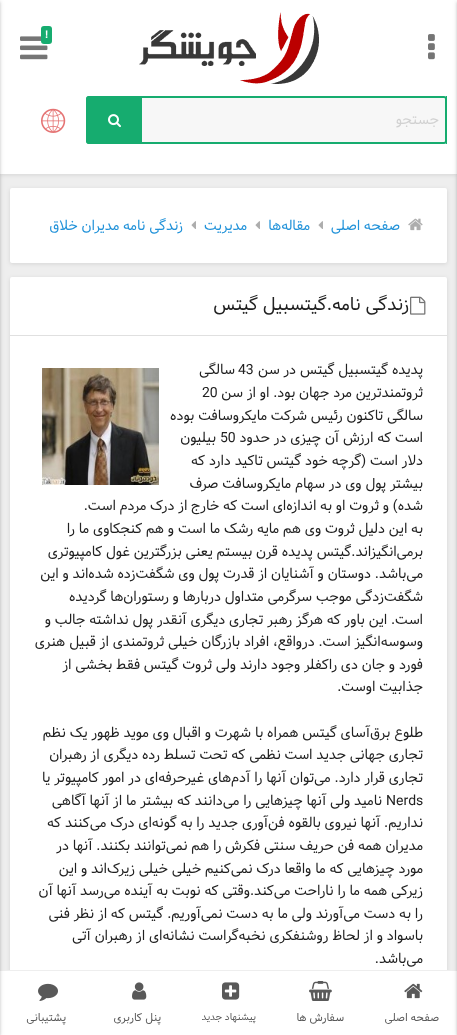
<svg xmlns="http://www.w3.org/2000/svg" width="457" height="1035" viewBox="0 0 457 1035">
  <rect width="100%" height="100%" fill="#eee"/>
  <path d="M0 1h457v174H0z" fill="#0000001a" filter="blur(2px)"/>
  <path d="M0 0h457v174H0z" fill="#fff"/>
  <rect x="10" y="278" width="437" height="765" rx="2" fill="#0000001a" filter="blur(2px)"/>
  <rect x="10" y="277" width="437" height="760" rx="2" fill="#fff"/>
  <path d="M0 970h457v1H0z" fill="#eee"/>
  <path d="M447 971h10v64H447z" fill="#fff"/>
  <path d="M457 1h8v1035H457z" fill="#0000001f" filter="blur(2.5px)"/>
  <path d="M457 2h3v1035H457z" fill="#00000024" filter="blur(1px)"/>
  <image x="428" y="34" width="7" height="26" href="img/1.png"/>
  <image x="139" y="12" width="180" height="72" href="img/2.png"/>
  <image x="20" y="36" width="28" height="24" href="img/3.png"/>
  <rect x="41" y="26" width="11" height="18" rx="3" fill="#16ac6f"/>
  <rect x="87" y="97" width="359" height="46" rx="2" fill="#f7f7f7" stroke="#16ac6f" stroke-width="2"/>
  <path d="M446 96h1v48H446z" fill="#16ac6f"/>
  <path d="M89 96H142V144H89C87.5 144 86 142.5 86 141V99C86 97.5 87.5 96 89 96Z" fill="#16ac6f"/>
  <image x="108" y="114" width="13" height="14" href="img/4.png"/>
  <image x="41" y="108" width="25" height="25" href="img/5.png"/>
  <path d="M0 971h10v64H0z" fill="#fff"/>
  <path d="M-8 1h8v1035H-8z" fill="#0000001f" filter="blur(2.5px)"/>
  <path d="M-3 2h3v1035H-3z" fill="#00000024" filter="blur(1px)"/>
  <rect x="10" y="189" width="437" height="75" rx="2" fill="#0000001a" filter="blur(2px)"/>
  <rect x="10" y="188" width="437" height="75" rx="2" fill="#fff"/>
  <image x="408" y="218" width="15" height="13" href="img/6.png"/>
  <image x="318" y="221" width="5" height="8" href="img/7.png"/>
  <image x="255" y="221" width="5" height="8" href="img/7.png"/>
  <image x="191" y="221" width="5" height="8" href="img/7.png"/>
  <path d="M10 335h437v1H10z" fill="#e0e0e0"/>
  <image x="410" y="296" width="16" height="19" href="img/8.png"/>
  <image x="42" y="368" width="117" height="117" href="img/9.png"/>
  <image x="404" y="983" width="19" height="16" href="img/10.png"/>
  <image x="309" y="981" width="23" height="20" href="img/11.png"/>
  <image x="222" y="982" width="18" height="18" href="img/12.png"/>
  <image x="132" y="982" width="15" height="18" href="img/13.png"/>
  <image x="38" y="983" width="20" height="18" href="img/14.png"/>
  <text x="45" y="38" font-family="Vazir" font-size="10" font-weight="bold" fill="#fff">!</text>
  <text x="439" y="124" font-family="Vazir" font-size="14" direction="rtl" fill="#d1d1d1">جستجو</text>
  <g font-family="Vazir" font-size="14" direction="rtl" fill="#2192d9">
    <text x="400" y="230">صفحه اصلی</text>
    <text x="310" y="230">مقاله‌ها</text>
    <text x="247" y="230">مدیریت</text>
    <text x="183" y="230">زندگی نامه مدیران خلاق</text>
  </g>
  <text x="409" y="310" font-family="Vazir" font-size="18" direction="rtl" fill="#212121">زندگی نامه.گیتسبیل گیتس</text>
  <text x="423" y="374" font-family="Vazir" font-size="14" direction="rtl" fill="#212121">پدیده گیتسبیل گیتس در سن</text>
  <text x="238" y="374" font-family="Vazir" font-size="14" fill="#212121">43</text>
  <g font-family="Vazir" font-size="14" direction="rtl" fill="#212121">
    <text x="235" y="374">سالگی</text>
    <text x="423" y="397">ثروتمندترین مرد جهان بود. او از سن</text>
  </g>
  <text x="202" y="397" font-family="Vazir" font-size="14" fill="#212121">20</text>
  <g font-family="Vazir" font-size="14" direction="rtl" fill="#212121">
    <text x="423" y="420">سالگی تاکنون رئیس شرکت مایکروسافت بوده</text>
    <text x="423" y="442">است که ارزش آن چیزی در حدود</text>
  </g>
  <text x="220" y="442" font-family="Vazir" font-size="14" fill="#212121">50</text>
  <g font-family="Vazir" font-size="14" direction="rtl" fill="#212121">
    <text x="216" y="442">بیلیون</text>
    <text x="423" y="465">دلار است (گرچه خود گیتس تاکید دارد که</text>
    <text x="423" y="488">بیشتر پول وی در سهام مایکروسافت صرف</text>
    <text x="423" y="510">شده) و ثروت او به اندازه‌ای است که خارج از درک مردم است.</text>
    <text x="423" y="533">به این دلیل ثروت وی هم مایه رشک ما است و هم کنجکاوی ما را</text>
    <text x="423" y="556">برمی‌انگیزاند.گیتس پدیده قرن بیستم یعنی بزرگترین غول کامپیوتری</text>
    <text x="423" y="578">می‌باشد. دوستان و آشنایان از قدرت پول وی شگفت‌زده شده‌اند و این</text>
    <text x="423" y="601">شگفت‌زدگی موجب سرگرمی متداول دربارها و رستوران‌ها گردیده</text>
    <text x="423" y="624">است. این باور که هرگز رهبر تجاری دیگری آنقدر پول نداشته جالب و</text>
    <text x="423" y="646">وسوسه‌انگیز است. درواقع، افراد بازرگان خیلی ثروتمندی از قبیل هنری</text>
    <text x="423" y="669">فورد و جان دی راکفلر وجود دارند ولی ثروت گیتس فقط بخشی از</text>
    <text x="423" y="691">جذابیت اوست.</text>
    <text x="423" y="737">طلوع برق‌آسای گیتس همراه با شهرت و اقبال وی موید ظهور یک نظم</text>
    <text x="423" y="759">تجاری جهانی جدید است نظمی که تحت تسلط رده دیگری از رهبران</text>
    <text x="423" y="782">تجاری قرار دارد. می‌توان آنها را آدم‌های غیرحرفه‌ای در امور کامپیوتر یا</text>
  </g>
  <text x="386" y="805" font-family="Vazir" font-size="14" fill="#212121">Nerds</text>
  <g font-family="Vazir" font-size="14" direction="rtl" fill="#212121">
    <text x="382" y="805">نامید ولی آنها چیزهایی را می‌دانند که بیشتر ما از آنها آگاهی</text>
    <text x="423" y="827">نداریم. آنها نیروی بالقوه فن‌آوری جدید را به گونه‌ای درک می‌کنند که</text>
    <text x="423" y="850">مدیران همه فن حریف سنتی فکرش را هم نمی‌توانند بکنند. آنها در</text>
    <text x="423" y="873">مورد چیزهایی که ما واقعا درک نمی‌کنیم خیلی خیلی زیرک‌اند و این</text>
    <text x="423" y="895">زیرکی همه ما را ناراحت می‌کند.وقتی که نوبت به آینده می‌رسد آنها آن</text>
    <text x="423" y="918">را به دست می‌آورند ولی ما به دست نمی‌آوریم. گیتس که از نظر فنی</text>
    <text x="423" y="940">باسواد و از لحاظ روشنفکری نخبه‌گراست نشانه‌ای از رهبران آتی</text>
    <text x="423" y="963">می‌باشد.</text>
  </g>
  <g font-family="Vazir" font-size="11" direction="rtl" fill="#595959">
    <text x="439" y="1021">صفحه اصلی</text>
    <text x="344" y="1021">سفارش ها</text>
  </g>
  <text x="256" y="1020" font-family="Vazir" font-size="9.75" direction="rtl" fill="#595959">پیشنهاد جدید</text>
  <g font-family="Vazir" font-size="11" direction="rtl" fill="#595959">
    <text x="161" y="1021">پنل کاربری</text>
    <text x="66" y="1021">پشتیبانی</text>
  </g>
</svg>
